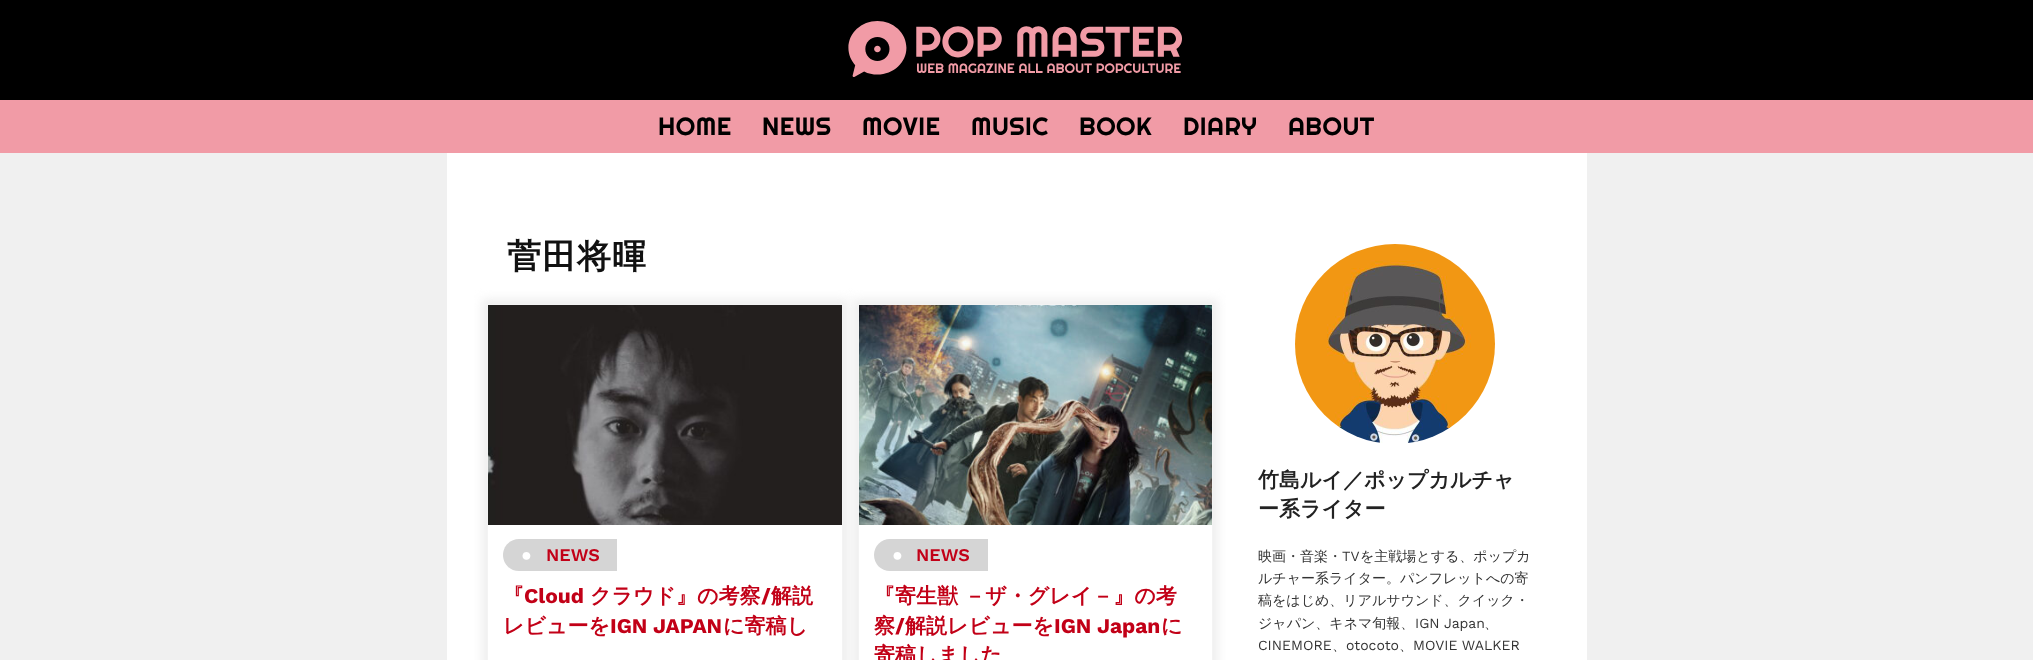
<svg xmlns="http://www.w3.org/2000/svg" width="2033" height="660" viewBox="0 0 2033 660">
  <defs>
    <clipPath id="clip1"><path d="M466 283H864V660H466ZM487 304H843V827H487Z" clip-rule="evenodd"/></clipPath>
    <clipPath id="clip2"><path d="M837 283H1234V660H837ZM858 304H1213V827H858Z" clip-rule="evenodd"/></clipPath>
  </defs>
  <rect width="100%" height="100%" fill="#f0f0f0"/>
  <path d="M0 0h2033v100H0z" fill="#000"/>
  <image x="848" y="21" width="334" height="56" href="img/1.png"/>
  <path d="M0 100h2033v53H0z" fill="#f19ba6"/>
  <path d="M447 153h1140v507H447z" fill="#fff"/>
  <g clip-path="url(#clip1)">
    <path d="M482 299h366v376H482z" fill="#eee" filter="blur(5px)"/>
  </g>
  <path d="M487.5 304.5h355v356H487.5z" fill="none" stroke="#f3f3f3"/>
  <g clip-path="url(#clip2)">
    <path d="M853 299h365v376H853z" fill="#eee" filter="blur(5px)"/>
  </g>
  <image x="488" y="305" width="354" height="220" href="img/2.png"/>
  <path d="M519 539H617V571H519C510 571 503 564 503 555C503 546 510 539 519 539Z" fill="#d5d5d5"/>
  <path d="M858.5 304.5h354v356H858.5z" fill="none" stroke="#f3f3f3"/>
  <image x="859" y="305" width="353" height="220" href="img/3.png"/>
  <path d="M890 539H988V571H890C881 571 874 564 874 555C874 546 881 539 890 539Z" fill="#d5d5d5"/>
  <image x="1295" y="244" width="200" height="199" href="img/4.png"/>
  <g font-family="Righteous" font-size="25" letter-spacing="0.5" fill="#000">
    <text x="658" y="135">HOME</text>
    <text x="762" y="135">NEWS</text>
    <text x="862" y="135">MOVIE</text>
    <text x="971" y="135">MUSIC</text>
    <text x="1079" y="135">BOOK</text>
    <text x="1183" y="135">DIARY</text>
    <text x="1288" y="135">ABOUT</text>
  </g>
  <text x="507" y="268" font-family="WenQuanYi Zen Hei" font-size="34" font-weight="bold" letter-spacing="1" fill="#111">菅田将暉</text>
  <text x="521" y="561" font-family="Liberation Sans" font-size="18" font-weight="bold" fill="#fff">●</text>
  <text x="546" y="561" font-family="Work Sans" font-size="18" font-weight="600" fill="#c20017">NEWS</text>
  <text x="503" y="603" font-family="WenQuanYi Zen Hei" font-size="21" font-weight="bold" fill="#c20017">『</text>
  <text x="524" y="603" font-family="Work Sans" font-size="21" font-weight="bold" fill="#c20017">Cloud</text>
  <text x="590" y="603" font-family="WenQuanYi Zen Hei" font-size="21" font-weight="bold" fill="#c20017">クラウド』の考察</text>
  <text x="761" y="603" font-family="Work Sans" font-size="21" font-weight="bold" fill="#c20017">/</text>
  <g font-family="WenQuanYi Zen Hei" font-size="21" font-weight="bold" fill="#c20017">
    <text x="771" y="603">解説</text>
    <text x="503" y="633">レビューを</text>
  </g>
  <text x="610" y="633" font-family="Work Sans" font-size="21" font-weight="bold" fill="#c20017">IGN JAPAN</text>
  <text x="723" y="633" font-family="WenQuanYi Zen Hei" font-size="21" font-weight="bold" fill="#c20017">に寄稿し</text>
  <text x="892" y="561" font-family="Liberation Sans" font-size="18" font-weight="bold" fill="#fff">●</text>
  <text x="916" y="561" font-family="Work Sans" font-size="18" font-weight="600" fill="#c20017">NEWS</text>
  <g font-family="WenQuanYi Zen Hei" font-size="21" font-weight="bold" fill="#c20017">
    <text x="874" y="603">『寄生獣 －ザ・グレイ－』の考</text>
    <text x="874" y="633">察</text>
  </g>
  <text x="895" y="633" font-family="Work Sans" font-size="21" font-weight="bold" fill="#c20017">/</text>
  <text x="905" y="633" font-family="WenQuanYi Zen Hei" font-size="21" font-weight="bold" fill="#c20017">解説レビューを</text>
  <text x="1054" y="633" font-family="Work Sans" font-size="21" font-weight="bold" fill="#c20017">IGN Japan</text>
  <g font-family="WenQuanYi Zen Hei" font-size="21" font-weight="bold" fill="#c20017">
    <text x="1161" y="633">に</text>
    <text x="874" y="662">寄稿しました</text>
  </g>
  <g font-family="WenQuanYi Zen Hei" font-size="21" font-weight="bold" fill="#222">
    <text x="1258" y="487">竹島ルイ／ポップカルチャ</text>
    <text x="1258" y="516">ー系ライター</text>
  </g>
  <text x="1258" y="561" font-family="WenQuanYi Zen Hei" font-size="14" font-weight="500" fill="#333">映画・音楽・</text>
  <text x="1342" y="561" font-family="Work Sans" font-size="14" fill="#333">TV</text>
  <g font-family="WenQuanYi Zen Hei" font-size="14" font-weight="500" fill="#333">
    <text x="1360" y="561">を主戦場とする、ポップカ</text>
    <text x="1258" y="583">ルチャー系ライター。パンフレットへの寄</text>
    <text x="1258" y="605">稿をはじめ、リアルサウンド、クイック・</text>
    <text x="1258" y="628">ジャパン、キネマ旬報、</text>
  </g>
  <text x="1415" y="628" font-family="Work Sans" font-size="14" fill="#333">IGN Japan</text>
  <text x="1484" y="628" font-family="WenQuanYi Zen Hei" font-size="14" font-weight="500" fill="#333">、</text>
  <text x="1258" y="650" font-family="Work Sans" font-size="14" fill="#333">CINEMORE</text>
  <text x="1332" y="650" font-family="WenQuanYi Zen Hei" font-size="14" font-weight="500" fill="#333">、</text>
  <text x="1346" y="650" font-family="Work Sans" font-size="14" fill="#333">otocoto</text>
  <text x="1399" y="650" font-family="WenQuanYi Zen Hei" font-size="14" font-weight="500" fill="#333">、</text>
  <text x="1413" y="650" font-family="Work Sans" font-size="14" fill="#333">MOVIE WALKER</text>
</svg>
